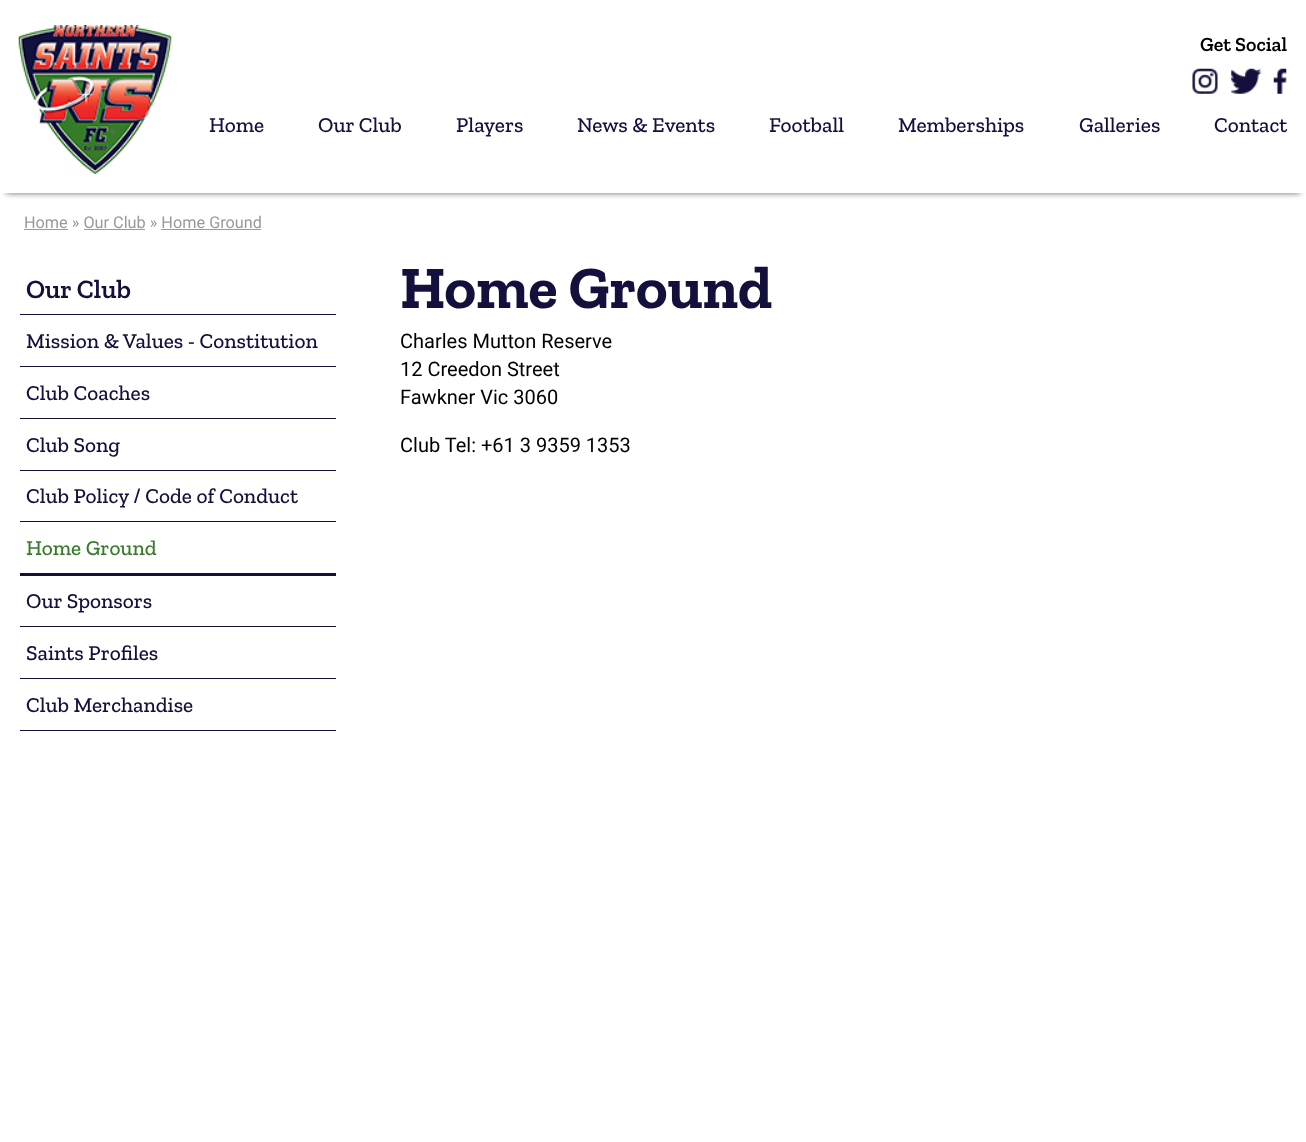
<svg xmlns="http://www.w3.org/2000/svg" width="1306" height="1142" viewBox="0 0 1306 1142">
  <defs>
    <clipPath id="clip1"><path d="M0 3H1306V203H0ZM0 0H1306V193H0Z" clip-rule="evenodd"/></clipPath>
  </defs>
  <rect width="100%" height="100%" fill="#fff"/>
  <g clip-path="url(#clip1)">
    <path d="M6 13h1294v180H6z" fill="#666" filter="blur(3px)"/>
  </g>
  <image x="18" y="25" width="154" height="149" href="img/1.png"/>
  <image x="1192" y="68" width="26" height="26" href="img/2.png"/>
  <image x="1231" y="68" width="31" height="26" href="img/3.png"/>
  <image x="1273" y="68" width="14" height="26" href="img/4.png"/>
  <path d="M24 229h44v1H24z" fill="#999"/>
  <path d="M84 229h61v1H84z" fill="#999"/>
  <path d="M161 229h100v1H161z" fill="#999"/>
  <path d="M20 314h316v1H20z" fill="#13103b"/>
  <path d="M20 366h316v1H20z" fill="#13103b"/>
  <path d="M20 418h316v1H20z" fill="#13103b"/>
  <path d="M20 470h316v1H20z" fill="#13103b"/>
  <path d="M20 521h316v1H20z" fill="#13103b"/>
  <path d="M20 573h316v3H20z" fill="#13103b"/>
  <path d="M20 626h316v1H20z" fill="#13103b"/>
  <path d="M20 678h316v1H20z" fill="#13103b"/>
  <path d="M20 730h316v1H20z" fill="#13103b"/>
  <text x="1200" y="51" font-family="Zilla Slab" font-size="20" font-weight="600" fill="#000">Get Social</text>
  <g font-family="Zilla Slab" font-size="21.25" font-weight="500" fill="#13103b">
    <text x="209" y="132">Home</text>
    <text x="318" y="132">Our Club</text>
    <text x="456" y="132">Players</text>
    <text x="577" y="132">News &amp; Events</text>
    <text x="769" y="132">Football</text>
    <text x="898" y="132">Memberships</text>
    <text x="1079" y="132">Galleries</text>
    <text x="1214" y="132">Contact</text>
  </g>
  <text x="24" y="228" font-family="Roboto" font-size="16.25" fill="#999">Home » Our Club » Home Ground</text>
  <text x="26" y="298" font-family="Zilla Slab" font-size="26.5" font-weight="600" fill="#13103b">Our Club</text>
  <g font-family="Zilla Slab" font-size="21.25" font-weight="500" fill="#13103b">
    <text x="26" y="348">Mission &amp; Values - Constitution</text>
    <text x="26" y="400">Club Coaches</text>
    <text x="26" y="452">Club Song</text>
    <text x="26" y="503">Club Policy / Code of Conduct</text>
  </g>
  <text x="26" y="555" font-family="Zilla Slab" font-size="21.25" font-weight="500" fill="#387b2b">Home Ground</text>
  <g font-family="Zilla Slab" font-size="21.25" font-weight="500" fill="#13103b">
    <text x="26" y="608">Our Sponsors</text>
    <text x="26" y="660">Saints Profiles</text>
    <text x="26" y="712">Club Merchandise</text>
  </g>
  <text x="400" y="308" font-family="Zilla Slab" font-size="60" font-weight="bold" fill="#13103b">Home Ground</text>
  <g font-family="Roboto" font-size="20" fill="#000">
    <text x="400" y="348">Charles Mutton Reserve</text>
    <text x="400" y="376">12 Creedon Street</text>
    <text x="400" y="404">Fawkner Vic 3060</text>
    <text x="400" y="452">Club Tel: +61 3 9359 1353</text>
  </g>
</svg>
